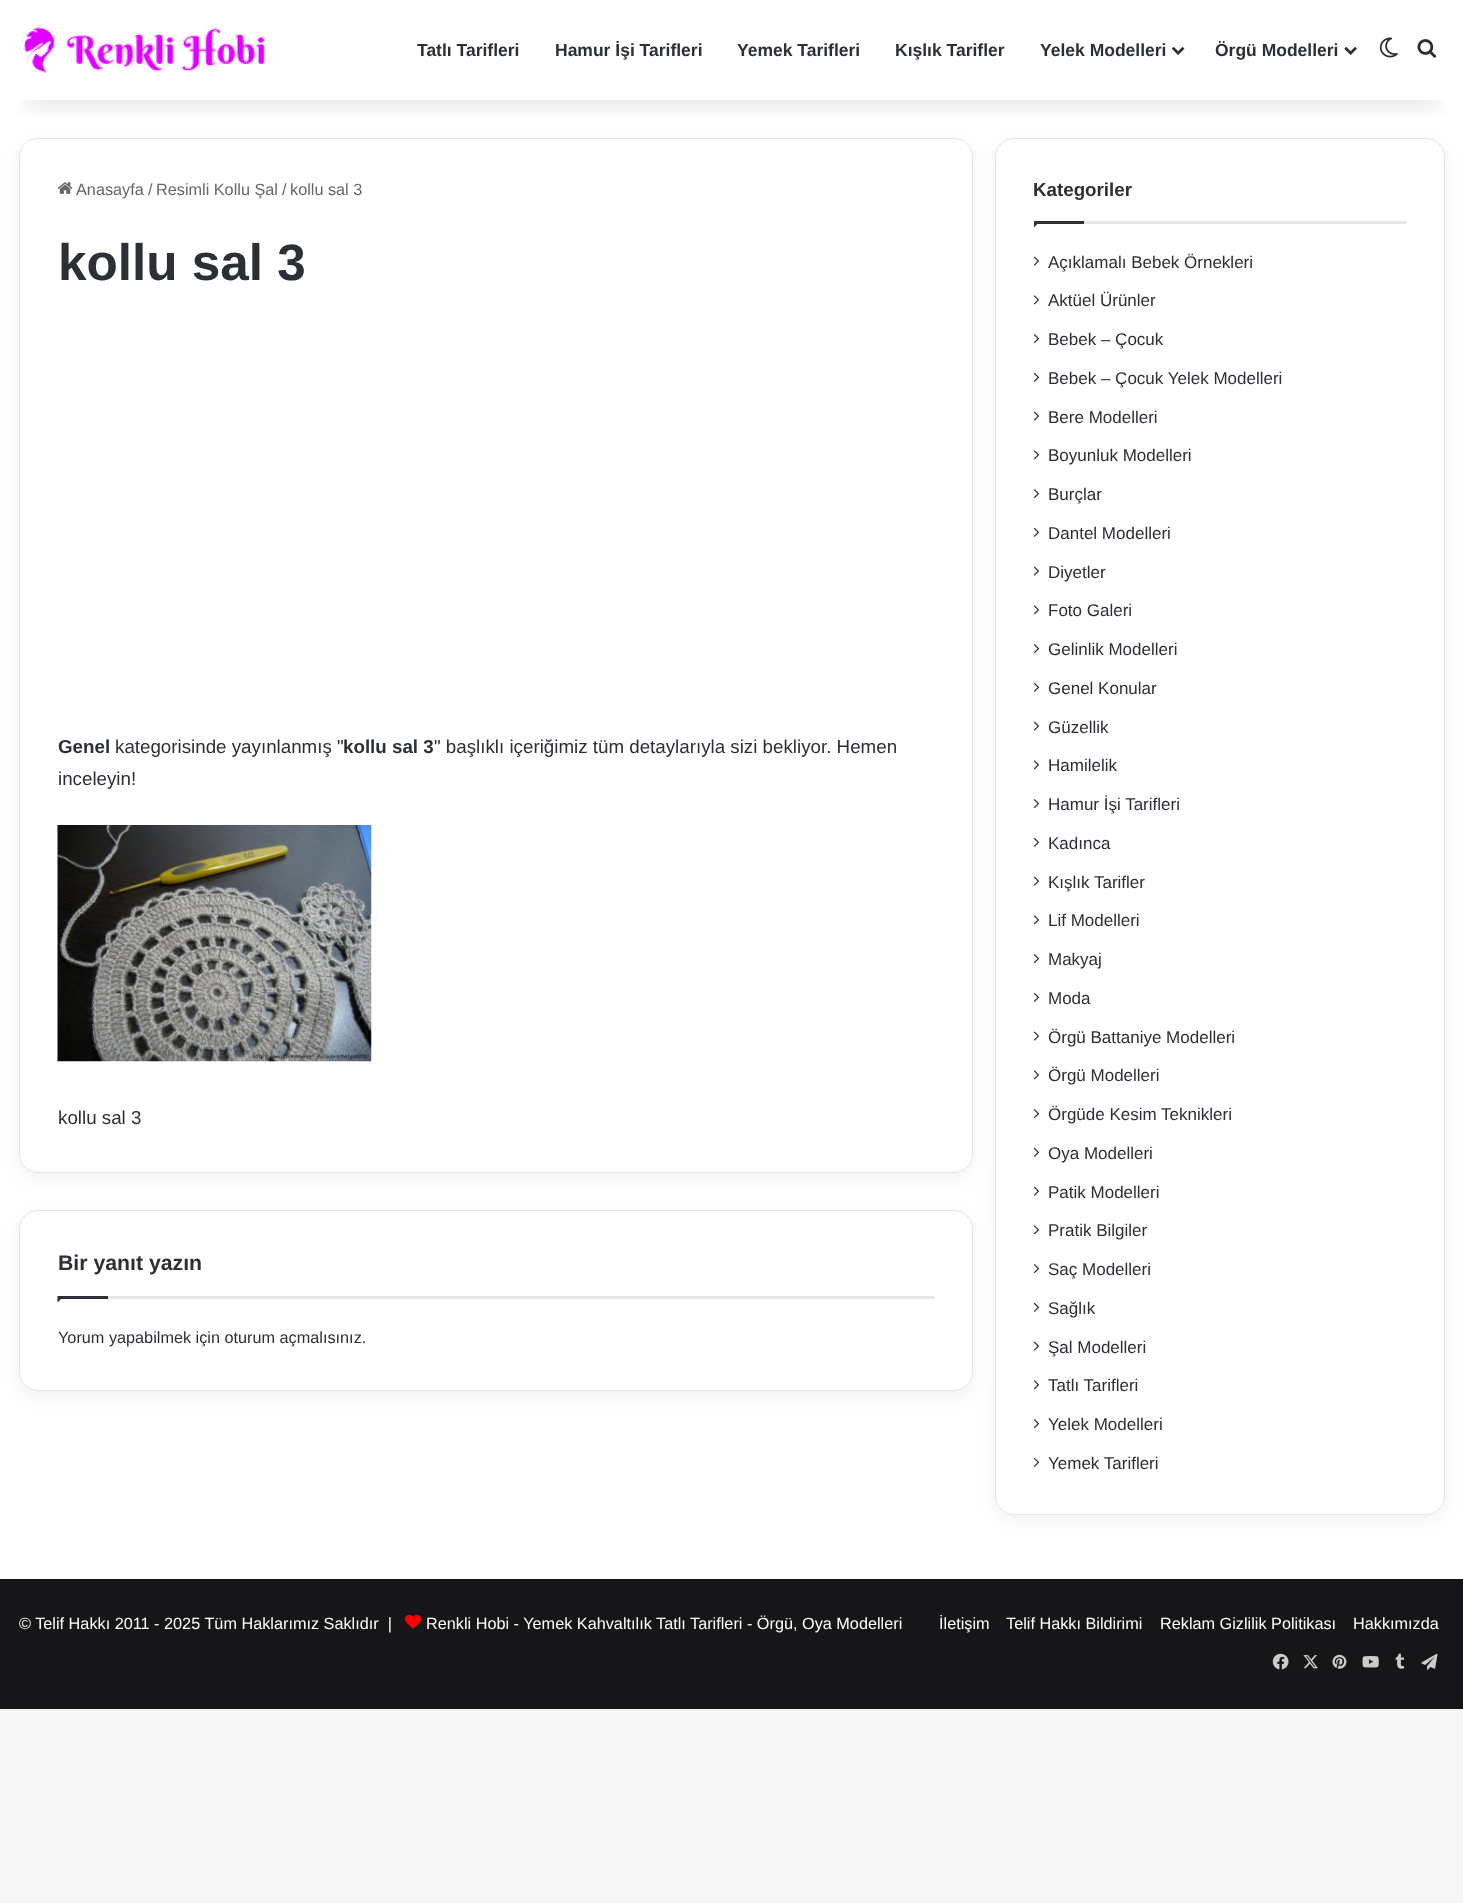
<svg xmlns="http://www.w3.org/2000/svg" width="1463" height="1903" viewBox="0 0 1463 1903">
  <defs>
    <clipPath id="clip1"><path d="M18 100h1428v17H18z"/></clipPath>
  </defs>
  <rect width="100%" height="100%" fill="#f7f7f7"/>
  <path d="M0 0h1463v1579H0z" fill="#fff"/>
  <rect x="19" y="144" width="954" height="1035" rx="19" fill="#0000000d" filter="blur(9.5px)"/>
  <rect x="19" y="138" width="954" height="1035" rx="19" fill="#fff"/>
  <rect x="19.5" y="138.5" width="953" height="1034" rx="18.5" fill="none" stroke="#0000001a"/>
  <rect x="19" y="1216" width="954" height="182" rx="19" fill="#0000000d" filter="blur(9.5px)"/>
  <rect x="19.5" y="1210.5" width="953" height="180" rx="18.5" fill="#fff" stroke="#e5e5e5"/>
  <rect x="995" y="144" width="450" height="1377" rx="19" fill="#0000000d" filter="blur(9.5px)"/>
  <rect x="995.5" y="138.5" width="449" height="1376" rx="18.5" fill="#fff" stroke="#e5e5e5"/>
  <g clip-path="url(#clip1)">
    <path d="M25 56h1414v50H25z" fill="#0000001a" filter="blur(12.5px)"/>
  </g>
  <image x="23" y="27" width="243" height="46" href="img/1.png"/>
  <image x="1172" y="47" width="13" height="8" href="img/2.png"/>
  <image x="1344" y="47" width="13" height="8" href="img/3.png"/>
  <image x="1379" y="37" width="19" height="21" href="img/4.png"/>
  <image x="1417" y="39" width="20" height="19" href="img/5.png"/>
  <image x="57" y="182" width="16" height="12" href="img/6.png"/>
  <image x="57" y="825" width="315" height="237" href="img/7.png"/>
  <path d="M108 1296h826v3H108z" fill="#e6e6e6"/>
  <path d="M57.5 1296H64L57.5 1302.5Z" fill="#2c2f34"/>
  <path d="M58 1296h50v3H58z" fill="#2c2f34"/>
  <path d="M1084 221h322v3H1084z" fill="#e6e6e6"/>
  <path d="M1034 221H1040L1034 227.5Z" fill="#2c2f34"/>
  <path d="M1034 221h50v3H1034z" fill="#2c2f34"/>
  <image x="1033" y="256" width="7" height="10" href="img/8.png"/>
  <image x="1033" y="295" width="7" height="10" href="img/9.png"/>
  <image x="1033" y="334" width="7" height="10" href="img/10.png"/>
  <image x="1033" y="372" width="7" height="10" href="img/11.png"/>
  <image x="1033" y="411" width="7" height="10" href="img/8.png"/>
  <image x="1033" y="450" width="7" height="10" href="img/9.png"/>
  <image x="1033" y="489" width="7" height="10" href="img/10.png"/>
  <image x="1033" y="527" width="7" height="10" href="img/11.png"/>
  <image x="1033" y="566" width="7" height="10" href="img/8.png"/>
  <image x="1033" y="605" width="7" height="10" href="img/9.png"/>
  <image x="1033" y="644" width="7" height="10" href="img/10.png"/>
  <image x="1033" y="682" width="7" height="10" href="img/11.png"/>
  <image x="1033" y="721" width="7" height="10" href="img/8.png"/>
  <image x="1033" y="760" width="7" height="10" href="img/9.png"/>
  <image x="1033" y="799" width="7" height="10" href="img/10.png"/>
  <image x="1033" y="837" width="7" height="10" href="img/11.png"/>
  <image x="1033" y="876" width="7" height="10" href="img/8.png"/>
  <image x="1033" y="915" width="7" height="10" href="img/9.png"/>
  <image x="1033" y="954" width="7" height="10" href="img/10.png"/>
  <image x="1033" y="992" width="7" height="10" href="img/11.png"/>
  <image x="1033" y="1031" width="7" height="10" href="img/8.png"/>
  <image x="1033" y="1070" width="7" height="10" href="img/9.png"/>
  <image x="1033" y="1109" width="7" height="10" href="img/10.png"/>
  <image x="1033" y="1147" width="7" height="10" href="img/11.png"/>
  <image x="1033" y="1186" width="7" height="10" href="img/8.png"/>
  <image x="1033" y="1225" width="7" height="10" href="img/9.png"/>
  <image x="1033" y="1264" width="7" height="10" href="img/10.png"/>
  <image x="1033" y="1302" width="7" height="10" href="img/11.png"/>
  <image x="1033" y="1341" width="7" height="10" href="img/8.png"/>
  <image x="1033" y="1380" width="7" height="10" href="img/9.png"/>
  <image x="1033" y="1419" width="7" height="10" href="img/10.png"/>
  <image x="1033" y="1457" width="7" height="10" href="img/11.png"/>
  <path d="M0 1579h1463v130H0z" fill="#161619"/>
  <image x="405" y="1614" width="17" height="15" href="img/12.png"/>
  <image x="1272" y="1653" width="17" height="17" href="img/13.png"/>
  <image x="1303" y="1655" width="15" height="14" href="img/14.png"/>
  <image x="1332" y="1654" width="15" height="15" href="img/15.png"/>
  <image x="1362" y="1656" width="17" height="12" href="img/16.png"/>
  <image x="1395" y="1653" width="10" height="16" href="img/17.png"/>
  <image x="1421" y="1653" width="17" height="17" href="img/18.png"/>
  <g font-family="Liberation Sans" font-size="17.5" font-weight="bold" fill="#2c2f34">
    <text x="417" y="56">Tatlı Tarifleri</text>
    <text x="555" y="56">Hamur İşi Tarifleri</text>
    <text x="737" y="56">Yemek Tarifleri</text>
    <text x="895" y="56">Kışlık Tarifler</text>
    <text x="1040" y="56">Yelek Modelleri</text>
    <text x="1215" y="56">Örgü Modelleri</text>
  </g>
  <g font-family="Liberation Sans" font-size="16.25" fill="#666">
    <text x="76" y="195">Anasayfa</text>
    <text x="148" y="195">/</text>
    <text x="156" y="195">Resimli Kollu Şal</text>
    <text x="282" y="195">/</text>
    <text x="290" y="195">kollu sal 3</text>
  </g>
  <text x="58" y="280" font-family="Liberation Sans" font-size="51.25" font-weight="bold" fill="#2c2f34">kollu sal 3</text>
  <text x="58" y="753" font-family="Liberation Sans" font-size="18.75" font-weight="bold" fill="#2c2f34">Genel</text>
  <text x="115" y="753" font-family="Liberation Sans" font-size="18.75" fill="#2c2f34">kategorisinde yayınlanmış "</text>
  <text x="343" y="753" font-family="Liberation Sans" font-size="18.75" font-weight="bold" fill="#2c2f34">kollu sal 3</text>
  <g font-family="Liberation Sans" font-size="18.75" fill="#2c2f34">
    <text x="434" y="753">" başlıklı içeriğimiz tüm detaylarıyla sizi bekliyor. Hemen</text>
    <text x="58" y="785">inceleyin!</text>
    <text x="58" y="1124">kollu sal 3</text>
  </g>
  <text x="58" y="1270" font-family="Liberation Sans" font-size="21.25" font-weight="bold" fill="#2c2f34">Bir yanıt yazın</text>
  <text x="58" y="1343" font-family="Liberation Sans" font-size="16.25" fill="#2c2f34">Yorum yapabilmek için oturum açmalısınız.</text>
  <text x="1033" y="196" font-family="Liberation Sans" font-size="18.75" font-weight="bold" fill="#2c2f34">Kategoriler</text>
  <g font-family="Liberation Sans" font-size="17" fill="#2c2f34">
    <text x="1048" y="268">Açıklamalı Bebek Örnekleri</text>
    <text x="1048" y="306">Aktüel Ürünler</text>
    <text x="1048" y="345">Bebek – Çocuk</text>
    <text x="1048" y="384">Bebek – Çocuk Yelek Modelleri</text>
    <text x="1048" y="423">Bere Modelleri</text>
    <text x="1048" y="461">Boyunluk Modelleri</text>
    <text x="1048" y="500">Burçlar</text>
    <text x="1048" y="539">Dantel Modelleri</text>
    <text x="1048" y="578">Diyetler</text>
    <text x="1048" y="616">Foto Galeri</text>
    <text x="1048" y="655">Gelinlik Modelleri</text>
    <text x="1048" y="694">Genel Konular</text>
    <text x="1048" y="733">Güzellik</text>
    <text x="1048" y="771">Hamilelik</text>
    <text x="1048" y="810">Hamur İşi Tarifleri</text>
    <text x="1048" y="849">Kadınca</text>
    <text x="1048" y="888">Kışlık Tarifler</text>
    <text x="1048" y="926">Lif Modelleri</text>
    <text x="1048" y="965">Makyaj</text>
    <text x="1048" y="1004">Moda</text>
    <text x="1048" y="1043">Örgü Battaniye Modelleri</text>
    <text x="1048" y="1081">Örgü Modelleri</text>
    <text x="1048" y="1120">Örgüde Kesim Teknikleri</text>
    <text x="1048" y="1159">Oya Modelleri</text>
    <text x="1048" y="1198">Patik Modelleri</text>
    <text x="1048" y="1236">Pratik Bilgiler</text>
    <text x="1048" y="1275">Saç Modelleri</text>
    <text x="1048" y="1314">Sağlık</text>
    <text x="1048" y="1353">Şal Modelleri</text>
    <text x="1048" y="1391">Tatlı Tarifleri</text>
    <text x="1048" y="1430">Yelek Modelleri</text>
    <text x="1048" y="1469">Yemek Tarifleri</text>
  </g>
  <g font-family="Liberation Sans" font-size="16.25" fill="#fff">
    <text x="19" y="1629" xml:space="preserve">© Telif Hakkı 2011 - 2025 Tüm Haklarımız Saklıdır  |</text>
    <text x="426" y="1629">Renkli Hobi - Yemek Kahvaltılık Tatlı Tarifleri - Örgü, Oya Modelleri</text>
    <text x="939" y="1629">İletişim</text>
    <text x="1006" y="1629">Telif Hakkı Bildirimi</text>
    <text x="1160" y="1629">Reklam Gizlilik Politikası</text>
    <text x="1353" y="1629">Hakkımızda</text>
  </g>
</svg>
